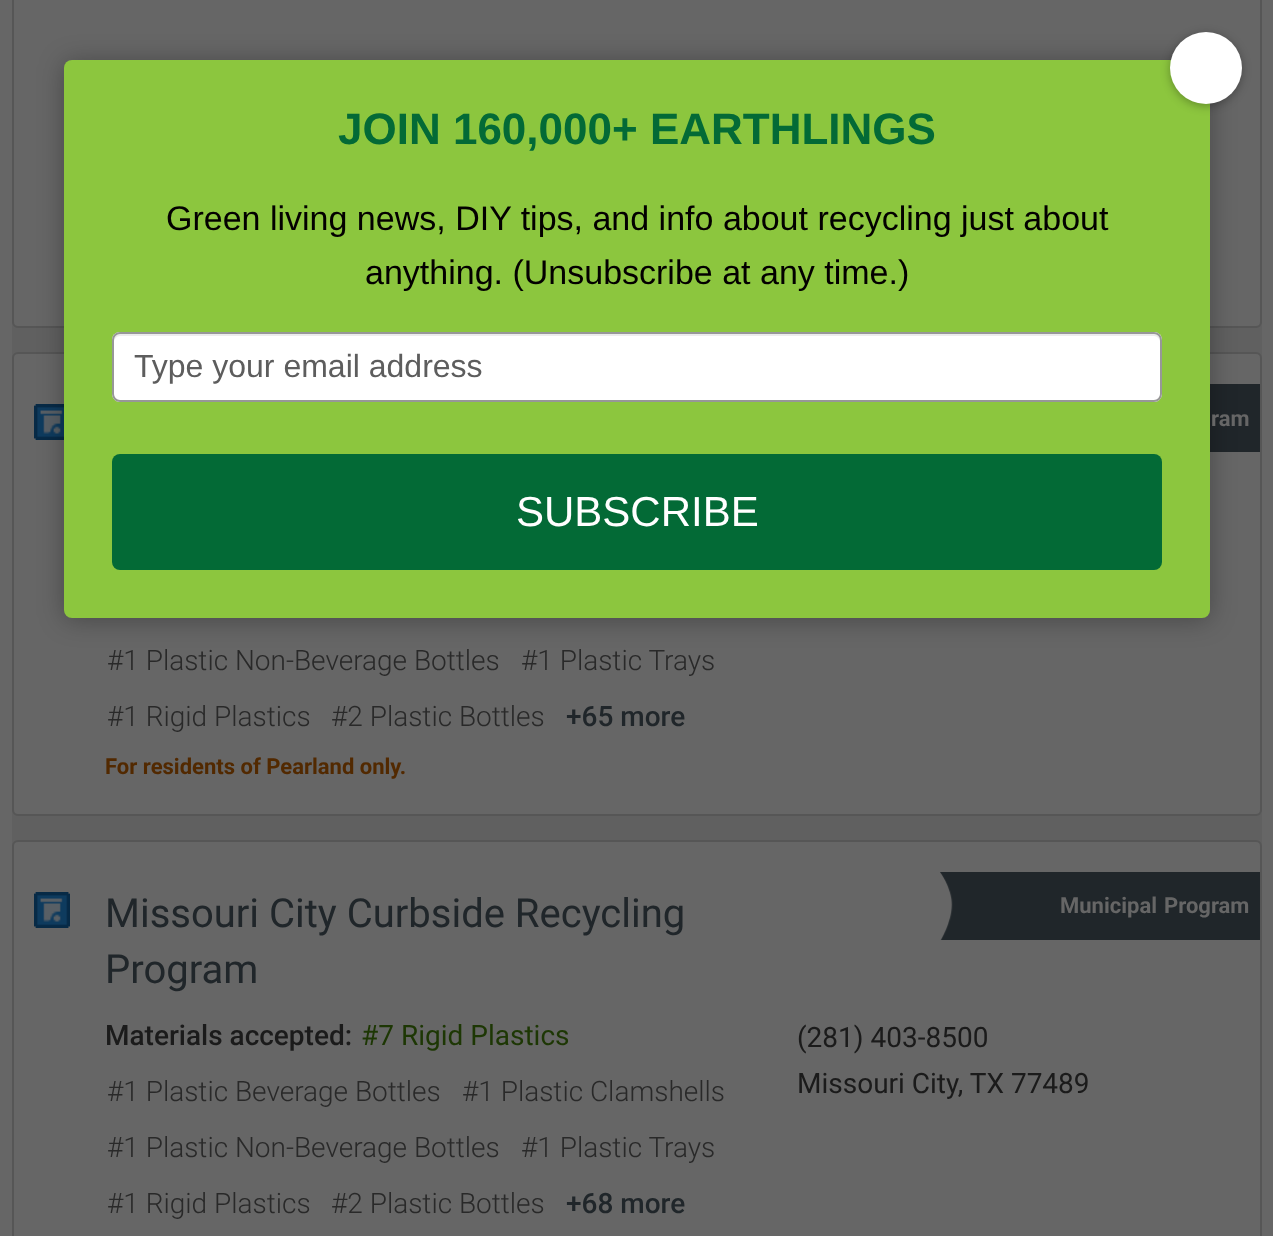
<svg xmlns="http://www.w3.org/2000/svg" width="1273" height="1236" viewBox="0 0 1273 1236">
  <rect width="100%" height="100%" fill="#666"/>
  <path d="M12 322h1250v524H12z" fill="#606060"/>
  <rect x="13" y="-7" width="1248" height="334" rx="5" fill="#666" stroke="#565656" stroke-width="2"/>
  <rect x="13" y="353" width="1248" height="462" rx="5" fill="#666" stroke="#565656" stroke-width="2"/>
  <image x="34" y="404" width="30" height="36" href="img/1.png"/>
  <image x="1210" y="384" width="50" height="68" href="img/2.png"/>
  <rect x="64" y="62" width="1146" height="558" rx="8" fill="#0000004d" filter="blur(13px)"/>
  <rect x="64" y="60" width="1146" height="558" rx="8" fill="#8cc63e"/>
  <rect x="1170" y="34" width="72" height="72" rx="36" fill="#0000004d" filter="blur(5px)"/>
  <circle cx="1206" cy="68" r="36" fill="#fff"/>
  <rect x="112" y="332" width="1050" height="70" rx="8" fill="#fff"/>
  <path d="M120 336H1154C1157 336 1160 339 1160 342V340C1160 337 1157 334 1154 334H120C117 334 114 337 114 340V342C114 339 117 336 120 336Z" fill="#ececec"/>
  <rect x="113" y="333" width="1048" height="68" rx="7" fill="none" stroke="#979797" stroke-width="2"/>
  <rect x="112" y="454" width="1050" height="116" rx="8" fill="#036a36"/>
  <rect x="13" y="841" width="1248" height="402" rx="5" fill="#666" stroke="#565656" stroke-width="2"/>
  <image x="34" y="892" width="36" height="36" href="img/3.png"/>
  <image x="940" y="872" width="320" height="68" href="img/4.png"/>
  <text x="338" y="144" font-family="Liberation Sans" font-size="44" font-weight="bold" fill="#036a36">JOIN 160,000+ EARTHLINGS</text>
  <g font-family="Liberation Sans" font-size="34" fill="#030000">
    <text x="166" y="230">Green living news, DIY tips, and info about recycling just about</text>
    <text x="365" y="284">anything. (Unsubscribe at any time.)</text>
  </g>
  <text x="134" y="377" font-family="Liberation Sans" font-size="32" fill="#5d5d5d">Type your email address</text>
  <text x="516" y="526" font-family="Liberation Sans" font-size="42" fill="#fff">SUBSCRIBE</text>
  <text x="1211" y="426" font-family="Roboto" font-size="22" font-weight="bold" fill="#666">ram</text>
  <g font-family="Roboto" font-size="28" font-weight="300" fill="#292929">
    <text x="107" y="670">#1 Plastic Non-Beverage Bottles</text>
    <text x="521" y="670">#1 Plastic Trays</text>
    <text x="107" y="726">#1 Rigid Plastics</text>
    <text x="331" y="726">#2 Plastic Bottles</text>
  </g>
  <text x="566" y="726" font-family="Roboto" font-size="28" font-weight="500" fill="#20262a">+65 more</text>
  <text x="105" y="774" font-family="Roboto" font-size="22" font-weight="bold" fill="#522900">For residents of Pearland only.</text>
  <g font-family="Roboto" font-size="40" fill="#20262a">
    <text x="105" y="927">Missouri City Curbside Recycling</text>
    <text x="105" y="983">Program</text>
  </g>
  <g font-family="Roboto" font-size="22" font-weight="bold" fill="#666">
    <text x="1060" y="913">Municipal</text>
    <text x="1164" y="913">Program</text>
  </g>
  <text x="105" y="1045" font-family="Roboto" font-size="28" font-weight="500" fill="#1b1b1b">Materials accepted:</text>
  <text x="361" y="1045" font-family="Roboto" font-size="28" fill="#1d3704">#7 Rigid Plastics</text>
  <g font-family="Roboto" font-size="28" font-weight="300" fill="#292929">
    <text x="107" y="1101">#1 Plastic Beverage Bottles</text>
    <text x="462" y="1101">#1 Plastic Clamshells</text>
    <text x="107" y="1157">#1 Plastic Non-Beverage Bottles</text>
    <text x="521" y="1157">#1 Plastic Trays</text>
    <text x="107" y="1213">#1 Rigid Plastics</text>
    <text x="331" y="1213">#2 Plastic Bottles</text>
  </g>
  <text x="566" y="1213" font-family="Roboto" font-size="28" font-weight="500" fill="#20262a">+68 more</text>
  <g font-family="Roboto" font-size="28" fill="#1b1b1b">
    <text x="797" y="1047">(281) 403-8500</text>
    <text x="797" y="1093">Missouri City, TX 77489</text>
  </g>
</svg>
